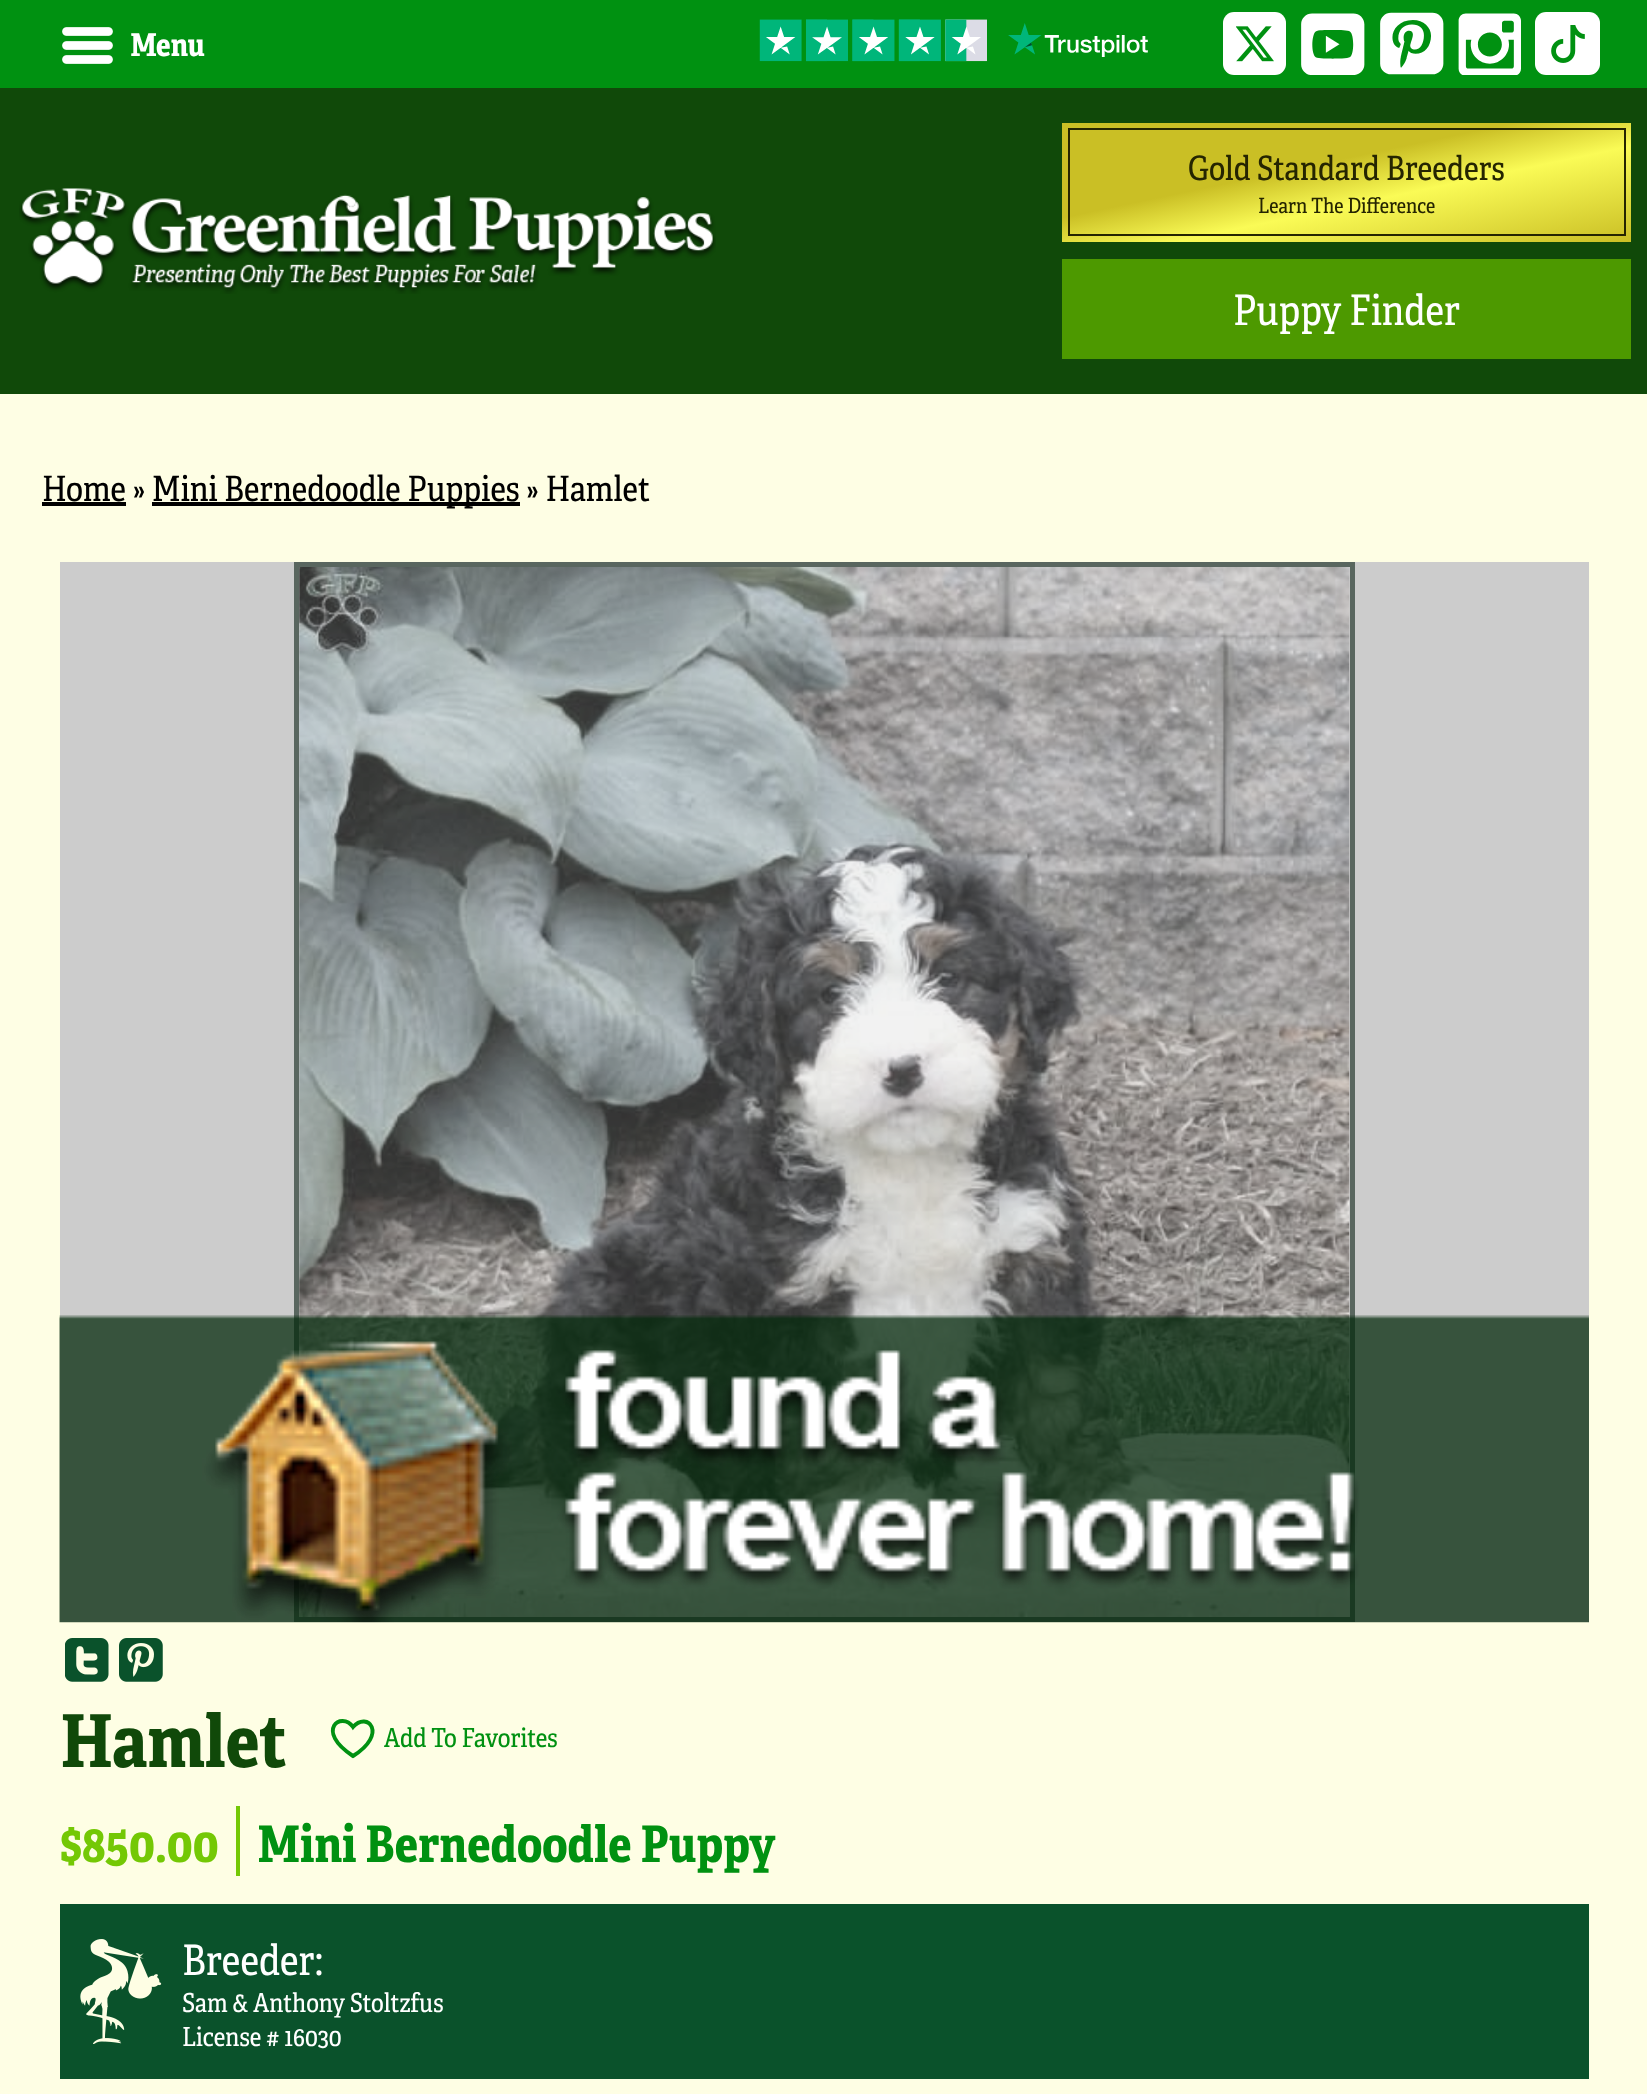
<svg xmlns="http://www.w3.org/2000/svg" width="1647" height="2094" viewBox="0 0 1647 2094">
  <defs>
    <linearGradient id="g1" gradientUnits="userSpaceOnUse" x1="1583" y1="13" x2="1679" y2="470"><stop offset="0.2" stop-color="#cabf25"/><stop offset="0.3" stop-color="#fafb56"/><stop offset="0.5" stop-color="#cabf25"/><stop offset="0.7" stop-color="#cabf25"/><stop offset="0.8" stop-color="#fafb56"/><stop offset="0.9" stop-color="#cabf25"/></linearGradient>
  </defs>
  <rect width="100%" height="100%" fill="#fefee4"/>
  <path d="M0 0h1647v88H0z" fill="#009111"/>
  <image x="62" y="27" width="51" height="37" href="img/1.png"/>
  <image x="759" y="19" width="389" height="43" href="img/2.png"/>
  <rect x="1223" y="12" width="63" height="63" rx="11" fill="#fff"/>
  <image x="1236" y="26" width="38" height="36" href="img/3.png"/>
  <image x="1301" y="13" width="64" height="62" href="img/4.png"/>
  <image x="1380" y="12" width="64" height="63" href="img/5.png"/>
  <image x="1458" y="13" width="63" height="62" href="img/6.png"/>
  <rect x="1535" y="12" width="65" height="63" rx="11" fill="#fff"/>
  <image x="1551" y="25" width="34" height="38" href="img/7.png"/>
  <path d="M0 88h1647v306H0z" fill="#104909"/>
  <image x="19" y="188" width="697" height="106" href="img/8.png"/>
  <path d="M1062 123h569v119H1062z" fill="url(#g1)"/>
  <path d="M1069 129h556v106H1069z" fill="none" stroke="#252501" stroke-width="2"/>
  <path d="M1062 259h569v100H1062z" fill="#4d9900"/>
  <path d="M42 502h84v4H42z" fill="#000"/>
  <path d="M152 502h368v4H152z" fill="#000"/>
  <path d="M60 562h1529v1060H60z" fill="#ccc"/>
  <path d="M296.5 564.5h1056v1055H296.5z" fill="none" stroke="#59665f" stroke-width="5"/>
  <image x="299" y="567" width="1051" height="1050" href="img/9.png"/>
  <image x="59" y="1315" width="1530" height="308" href="img/10.png"/>
  <image x="65" y="1638" width="44" height="44" href="img/11.png"/>
  <image x="119" y="1638" width="44" height="44" href="img/12.png"/>
  <path d="M353 1756C388.5 1734 367.5 1710.5 353 1727C341.5 1710.5 314 1730.5 353 1756Z" fill="none" stroke="#009111" stroke-width="3.9"/>
  <path d="M236 1806h4v70H236z" fill="#74c805"/>
  <path d="M60 1904h1529v175H60z" fill="#0a522b"/>
  <image x="80" y="1939" width="82" height="105" href="img/13.png"/>
  <text x="130" y="56" font-family="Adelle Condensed" font-size="31.5" font-weight="bold" fill="#fff">Menu</text>
  <text x="1188" y="180" font-family="Adelle Condensed" font-size="33.5" fill="#252501">Gold Standard Breeders</text>
  <text x="1258" y="213" font-family="Adelle Condensed" font-size="21" fill="#252501">Learn The Difference</text>
  <text x="1233" y="325" font-family="Adelle Condensed" font-size="42" fill="#fff">Puppy Finder</text>
  <g font-family="Adelle Condensed" font-size="35" fill="#000">
    <text x="42" y="501">Home »</text>
    <text x="152" y="501">Mini Bernedoodle Puppies » Hamlet</text>
  </g>
  <text x="60" y="1767" font-family="Adelle Condensed" font-size="73" font-weight="bold" fill="#104909">Hamlet</text>
  <text x="384" y="1747" font-family="Adelle Condensed" font-size="26.25" fill="#009111">Add To Favorites</text>
  <text x="60" y="1862" font-family="Adelle Condensed" font-size="50.4" font-weight="bold" fill="#74c805">$850.00</text>
  <text x="257" y="1862" font-family="Adelle Condensed" font-size="50.4" font-weight="bold" fill="#009111">Mini Bernedoodle Puppy</text>
  <text x="182" y="1975" font-family="Adelle Condensed" font-size="42" fill="#fff">Breeder:</text>
  <g font-family="Adelle Condensed" font-size="26.25" fill="#fff">
    <text x="182" y="2012">Sam &amp; Anthony Stoltzfus</text>
    <text x="182" y="2046">License # 16030</text>
  </g>
</svg>
